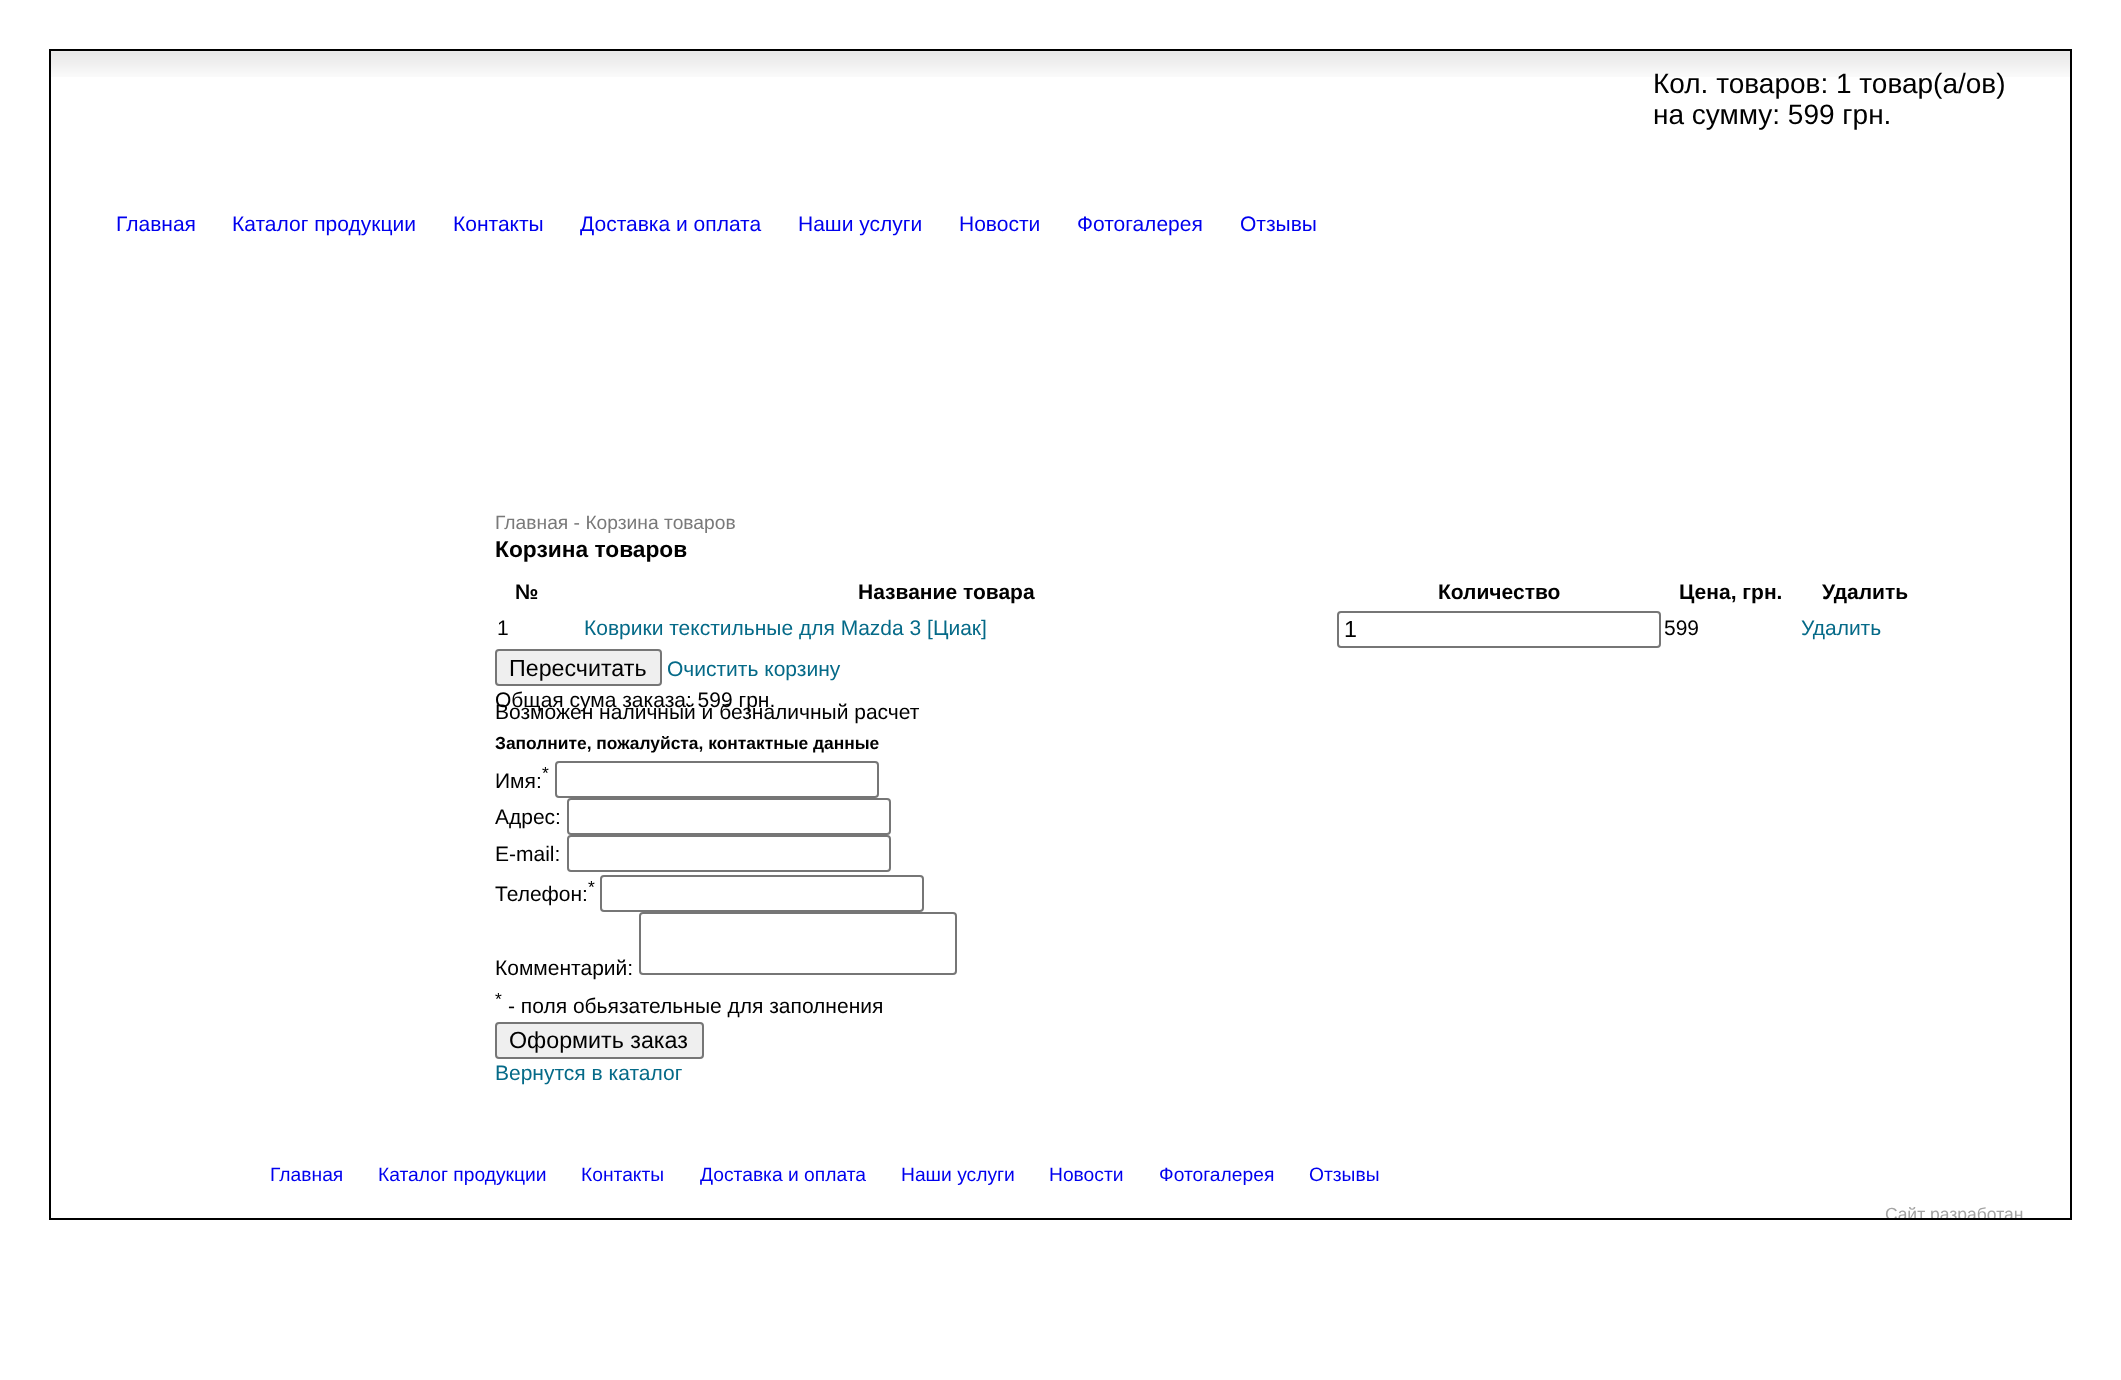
<!DOCTYPE html>
<meta charset="utf-8">
<style>body { margin: 0 } canvas { display: block }</style>
<canvas id="canvas" width="2121" height="1380"></canvas>
<script type="module">
  const canvas = document.getElementById("canvas");
  const g = canvas.getContext("2d");
  g.miterLimit = 4;
  g.fontKerning = "normal";
  function drawText(s, x, y, [font, color]) {
    g.font = font;
    g.fillStyle = color;
    g.fillText(s, x, y);
  }
  function fillBox(x, y, w, h, color) {
    g.fillStyle = color;
    g.fillRect(x, y, w, h);
  }
  async function drawPicture(src, x, y, w, h) {
    const img = new Image();
    img.src = src;
    await img.decode();
    g.drawImage(img, x, y, w, h);
  }

  const s1 = ["28px Liberation Sans", "#000000"];
  const s2 = ["21px Liberation Sans", "#0000EE"];
  const s3 = ["19.25px Liberation Sans", "#797979"];
  const s4 = ["bold 22.75px Liberation Sans", "#000000"];
  const s5 = ["bold 21px Liberation Sans", "#000000"];
  const s6 = ["21px Liberation Sans", "#000000"];
  const s7 = ["21px Liberation Sans", "#056A88"];
  const s8 = ["23.25px Liberation Sans", "#000000"];
  const s9 = ["bold 17.4px Liberation Sans", "#000000"];
  const s10 = ["17.5px Liberation Sans", "#000000"];
  const s11 = ["19.25px Liberation Sans", "#0000EE"];
  const s12 = ["17.5px Liberation Sans", "#A3A3A3"];

  fillBox(0, 0, 2121, 1380, "#FFFFFF");
  await drawPicture("pic1.png", 51, 51, 2019, 26);
  g.strokeStyle = "#000000";
  g.lineWidth = 2;
  g.strokeRect(50, 50, 2021, 1169);
  drawText("Кол. товаров: 1 товар(а/ов)", 1653, 93, s1);
  drawText("на сумму: 599 грн.", 1653, 124, s1);
  drawText("Главная", 116, 231, s2);
  drawText("Каталог продукции", 232, 231, s2);
  drawText("Контакты", 453, 231, s2);
  drawText("Доставка и оплата", 580, 231, s2);
  drawText("Наши услуги", 798, 231, s2);
  drawText("Новости", 959, 231, s2);
  drawText("Фотогалерея", 1077, 231, s2);
  drawText("Отзывы", 1240, 231, s2);
  drawText("Главная - Корзина товаров", 495, 529, s3);
  drawText("Корзина товаров", 495, 557, s4);
  drawText("№", 515, 599, s5);
  drawText("Название товара", 858, 599, s5);
  drawText("Количество", 1438, 599, s5);
  drawText("Цена, грн.", 1679, 599, s5);
  drawText("Удалить", 1822, 599, s5);
  drawText("1", 497, 635, s6);
  drawText("Коврики текстильные для Mazda 3 [Циак]", 584, 635, s7);
  g.beginPath();
  g.roundRect(1338, 612, 322, 35, 3);
  g.strokeStyle = "#767676";
  g.stroke();
  drawText("1", 1344, 637, s8);
  drawText("599", 1664, 635, s6);
  drawText("Удалить", 1801, 635, s7);
  g.fillStyle = "#EFEFEF";
  g.beginPath();
  g.roundRect(496, 650, 165, 35, 3);
  g.fill();
  g.stroke();
  drawText("Пересчитать", 509, 676, s8);
  drawText("Очистить корзину", 667, 676, s7);
  drawText("Общая сума заказа: 599 грн.", 495, 707, s6);
  drawText("Возможен наличный и безналичный расчет", 495, 719, s6);
  drawText("Заполните, пожалуйста, контактные данные", 495, 749, s9);
  drawText("*", 542, 779, s10);
  g.beginPath();
  g.roundRect(556, 762, 322, 35, 3);
  g.stroke();
  drawText("Имя:", 495, 788, s6);
  drawText("Адрес:", 495, 824, s6);
  g.beginPath();
  g.roundRect(568, 799, 322, 35, 3);
  g.stroke();
  drawText("E-mail:", 495, 861, s6);
  g.beginPath();
  g.roundRect(568, 836, 322, 35, 3);
  g.stroke();
  drawText("*", 588, 893, s10);
  g.beginPath();
  g.roundRect(601, 876, 322, 35, 3);
  g.stroke();
  drawText("Телефон:", 495, 901, s6);
  drawText("Комментарий:", 495, 975, s6);
  g.beginPath();
  g.roundRect(640, 913, 316, 61, 3);
  g.stroke();
  drawText("*", 495, 1005, s10);
  drawText("- поля обьязательные для заполнения", 508, 1013, s6);
  g.fillStyle = "#EFEFEF";
  g.beginPath();
  g.roundRect(496, 1023, 207, 35, 3);
  g.fill();
  g.stroke();
  drawText("Оформить заказ", 509, 1048, s8);
  drawText("Вернутся в каталог", 495, 1080, s7);
  drawText("Главная", 270, 1181, s11);
  drawText("Каталог продукции", 378, 1181, s11);
  drawText("Контакты", 581, 1181, s11);
  drawText("Доставка и оплата", 700, 1181, s11);
  drawText("Наши услуги", 901, 1181, s11);
  drawText("Новости", 1049, 1181, s11);
  drawText("Фотогалерея", 1159, 1181, s11);
  drawText("Отзывы", 1309, 1181, s11);
  g.save();
  g.beginPath();
  g.rect(98, 1139, 1925, 79);
  g.clip();
  drawText("Cайт разработан", 1885, 1220, s12);
  g.restore();
</script>
